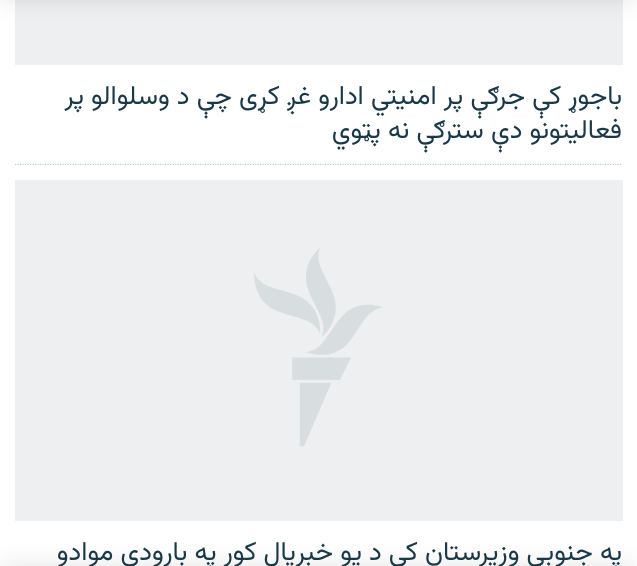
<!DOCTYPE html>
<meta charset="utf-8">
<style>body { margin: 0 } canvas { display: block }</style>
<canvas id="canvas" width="637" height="566"></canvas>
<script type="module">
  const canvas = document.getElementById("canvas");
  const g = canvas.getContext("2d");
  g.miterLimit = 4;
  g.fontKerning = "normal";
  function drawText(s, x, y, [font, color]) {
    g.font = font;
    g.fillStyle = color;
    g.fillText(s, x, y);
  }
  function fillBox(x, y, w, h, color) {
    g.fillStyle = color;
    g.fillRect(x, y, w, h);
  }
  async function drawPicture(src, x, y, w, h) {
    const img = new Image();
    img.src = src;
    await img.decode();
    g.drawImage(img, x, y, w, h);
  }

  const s1 = ["26.6px Vazirmatn", "#1A3948"];

  fillBox(0, 0, 637, 566, "#FFFFFF");
  fillBox(15, 0, 608, 65, "#EDEFF0");
  g.fillStyle = "rgba(0, 0, 0, 0.1)";
  g.filter = "blur(12.5px)";
  g.beginPath();
  g.rect(0, -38, 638, 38);
  g.fill();
  g.filter = "none";
  g.filter = "blur(12.5px)";
  g.beginPath();
  g.rect(0, 566, 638, 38);
  g.fill();
  g.filter = "none";
  g.direction = "rtl";
  drawText("باجوړ کې جرګې پر امنیتي ادارو غږ کړی چې د وسلوالو پر", 622, 104, s1);
  drawText("فعالیتونو دې سترګې نه پټوي", 622, 138, s1);
  g.beginPath();
  g.moveTo(15, 164.5);
  g.lineTo(622.5, 164.5);
  g.strokeStyle = "#B4C5CD";
  g.lineWidth = 1.2;
  g.setLineDash([1.25, 1.25]);
  g.stroke();
  fillBox(15, 180, 608, 341, "#EDEFF0");
  await drawPicture("pic1.png", 254, 248, 129, 199);
  drawText("په جنوبي وزیرستان کې د یو خبریال کور په بارودي موادو", 622, 560, s1);
</script>
